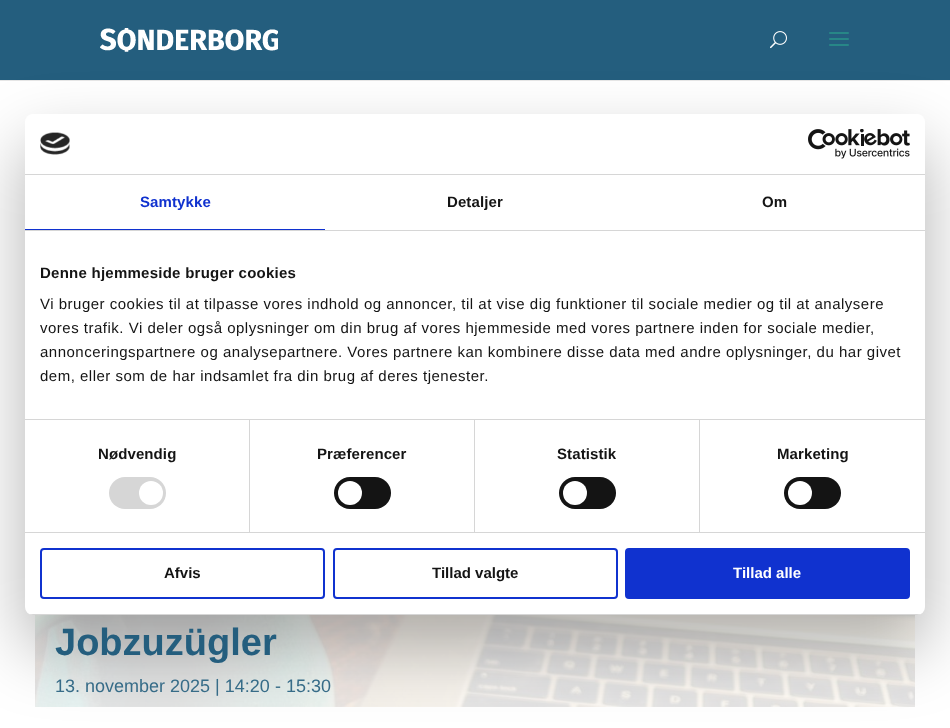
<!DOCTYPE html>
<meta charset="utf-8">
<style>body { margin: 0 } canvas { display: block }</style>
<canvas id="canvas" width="950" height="728"></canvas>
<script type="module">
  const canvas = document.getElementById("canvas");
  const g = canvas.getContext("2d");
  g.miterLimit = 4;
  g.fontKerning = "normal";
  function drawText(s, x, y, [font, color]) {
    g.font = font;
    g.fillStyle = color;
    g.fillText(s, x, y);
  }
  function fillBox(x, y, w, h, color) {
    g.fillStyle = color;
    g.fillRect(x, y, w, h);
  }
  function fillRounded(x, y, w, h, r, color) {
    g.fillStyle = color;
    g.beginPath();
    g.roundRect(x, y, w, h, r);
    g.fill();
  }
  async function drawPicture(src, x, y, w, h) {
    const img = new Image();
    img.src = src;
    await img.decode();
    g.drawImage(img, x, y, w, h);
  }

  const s1 = ["bold 15px Liberation Sans", "#1032CF"];
  const s2 = ["bold 15px Liberation Sans", "#141414"];
  const s3 = ["15px Liberation Sans", "#141414"];
  const s4 = ["bold 15px Liberation Sans", "#FFFFFF"];
  const s5 = ["bold 38px Liberation Sans", "#245E7E"];
  const s6 = ["18px Liberation Sans", "#376C88"];

  fillBox(0, 0, 950, 728, "#FFFFFF");
  fillBox(0, 80, 950, 1, "#E6E6E6");
  fillBox(0, 0, 950, 80, "#245E7E");
  await drawPicture("pic3.png", 100, 28, 178, 24);
  await drawPicture("pic4.png", 770, 31, 17, 18);
  await drawPicture("pic5.png", 829, 32, 20, 14);
  await drawPicture("pic6.png", 35, 615, 880, 92);
  fillBox(35, 615, 880, 92, "rgba(255, 255, 255, 0.88)");
  g.fillStyle = "rgba(0, 0, 0, 0.3)";
  g.filter = "blur(34px)";
  g.beginPath();
  g.roundRect(25, 146, 900, 501, 8);
  g.fill();
  g.filter = "none";
  fillRounded(25, 114, 900, 501, 8, "#FFFFFF");
  fillBox(25, 174, 900, 1, "#D6D6D6");
  await drawPicture("pic1.png", 40, 132, 30, 23);
  await drawPicture("pic2.png", 808, 129, 102, 30);
  fillBox(25, 230, 900, 1, "#D6D6D6");
  fillBox(25, 229, 300, 1, "#1032CF");
  g.letterSpacing = "0.1px";
  drawText("Samtykke", 140, 207, s1);
  drawText("Detaljer", 447, 207, s2);
  drawText("Om", 762, 207, s2);
  fillBox(25, 419, 900, 1, "#D6D6D6");
  g.letterSpacing = "0.25px";
  drawText("Denne hjemmeside bruger cookies", 40, 278, s2);
  g.letterSpacing = "0.5px";
  drawText("Vi bruger cookies til at tilpasse vores indhold og annoncer, til at vise dig funktioner til sociale medier og til at analysere", 40, 309, s3);
  drawText("vores trafik. Vi deler også oplysninger om din brug af vores hjemmeside med vores partnere inden for sociale medier,", 40, 333, s3);
  drawText("annonceringspartnere og analysepartnere. Vores partnere kan kombinere disse data med andre oplysninger, du har givet", 40, 357, s3);
  drawText("dem, eller som de har indsamlet fra din brug af deres tjenester.", 40, 381, s3);
  fillBox(25, 532, 900, 1, "#D6D6D6");
  fillBox(249, 420, 1, 112, "#D6D6D6");
  g.letterSpacing = "0.1px";
  drawText("Nødvendig", 98, 459, s2);
  fillRounded(109, 477, 57, 32, 16, "#D6D6D6");
  g.fillStyle = "#FFFFFF";
  g.beginPath();
  g.arc(151, 493, 12, 0, Math.PI * 2);
  g.fill();
  fillBox(474, 420, 1, 112, "#D6D6D6");
  drawText("Præferencer", 317, 459, s2);
  fillRounded(334, 477, 57, 32, 16, "#141414");
  g.fillStyle = "#FFFFFF";
  g.beginPath();
  g.arc(350, 493, 12, 0, Math.PI * 2);
  g.fill();
  fillBox(699, 420, 1, 112, "#D6D6D6");
  drawText("Statistik", 557, 459, s2);
  fillRounded(559, 477, 57, 32, 16, "#141414");
  g.fillStyle = "#FFFFFF";
  g.beginPath();
  g.arc(575, 493, 12, 0, Math.PI * 2);
  g.fill();
  drawText("Marketing", 777, 459, s2);
  fillRounded(784, 477, 57, 32, 16, "#141414");
  g.fillStyle = "#FFFFFF";
  g.beginPath();
  g.arc(800, 493, 12, 0, Math.PI * 2);
  g.fill();
  g.save();
  g.beginPath();
  g.roundRect(25, 114, 900, 501, 8);
  g.clip();
  fillBox(25, 614, 900, 1, "#D6D6D6");
  g.restore();
  g.beginPath();
  g.roundRect(41, 549, 283, 49, 3);
  g.strokeStyle = "#1032CF";
  g.lineWidth = 2;
  g.stroke();
  g.letterSpacing = "0px";
  drawText("Afvis", 164, 578, s2);
  g.beginPath();
  g.roundRect(334, 549, 283, 49, 3);
  g.stroke();
  drawText("Tillad valgte", 432, 578, s2);
  g.fillStyle = "#1032CF";
  g.beginPath();
  g.roundRect(626, 549, 283, 49, 3);
  g.fill();
  g.stroke();
  drawText("Tillad alle", 733, 578, s4);
  drawText("Jobzuzügler", 55, 655, s5);
  drawText("13. november 2025 | 14:20", 55, 692, s6);
  drawText("-", 275, 692, s6);
  drawText("15:30", 286, 692, s6);
</script>
